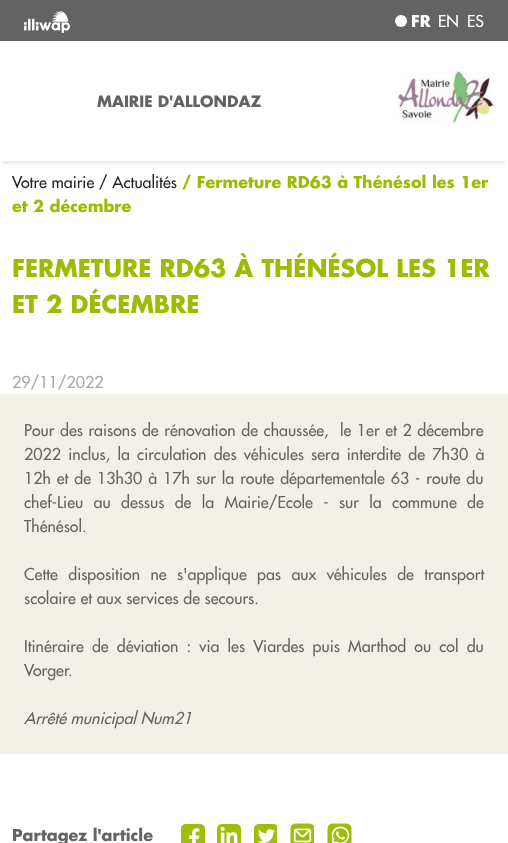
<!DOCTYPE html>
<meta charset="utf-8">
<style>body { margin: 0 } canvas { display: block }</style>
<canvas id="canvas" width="508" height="843"></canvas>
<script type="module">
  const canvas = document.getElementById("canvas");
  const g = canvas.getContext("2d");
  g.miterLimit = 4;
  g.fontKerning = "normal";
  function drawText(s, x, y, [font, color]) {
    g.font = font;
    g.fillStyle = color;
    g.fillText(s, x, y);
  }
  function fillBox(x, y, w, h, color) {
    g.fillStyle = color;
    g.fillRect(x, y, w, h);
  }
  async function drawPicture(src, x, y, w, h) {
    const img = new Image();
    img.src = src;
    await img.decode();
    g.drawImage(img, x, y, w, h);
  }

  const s1 = ["bold 16px Futura", "#FFFFFF"];
  const s2 = ["16px Futura", "#FFFFFF"];
  const s3 = ["bold 15.25px Futura", "#646363"];
  const s4 = ["16px Futura", "#212529"];
  const s5 = ["bold 16px Futura", "#9FBA00"];
  const s6 = ["bold 23.85px Futura", "#9FBA00"];
  const s7 = ["16px Futura", "#A8A8A8"];
  const s8 = ["16px Futura", "#646363"];
  const s9 = ["italic 16px Futura", "#646363"];
  const s10 = ["bold 16px Futura", "#646363"];

  fillBox(0, 0, 508, 843, "#FFFFFF");
  g.save();
  g.beginPath();
  g.rect(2, 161, 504, 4);
  g.clip();
  g.fillStyle = "rgba(0, 0, 0, 0.08)";
  g.filter = "blur(1.5px)";
  g.beginPath();
  g.rect(3, 9, 502, 155);
  g.fill();
  g.filter = "none";
  g.restore();
  fillBox(0, 0, 508, 41, "#646363");
  await drawPicture("pic1.png", 24, 11, 46, 22);
  g.fillStyle = "#FFFFFF";
  g.beginPath();
  g.arc(401, 21, 6, 0, Math.PI * 2);
  g.fill();
  drawText("FR", 411, 27, s1);
  drawText("EN", 438, 27, s2);
  drawText("ES", 467, 27, s2);
  drawText("MAIRIE D'ALLONDAZ", 97, 107, s3);
  await drawPicture("pic2.png", 398, 71, 96, 54);
  drawText("Votre mairie / Actualités", 12, 188, s4);
  drawText("/ Fermeture RD63 à Thénésol les 1er", 182, 188, s5);
  drawText("et 2 décembre", 12, 212, s5);
  drawText("FERMETURE RD63 À THÉNÉSOL LES 1ER", 12, 277, s6);
  drawText("ET 2 DÉCEMBRE", 12, 313, s6);
  drawText("29/11/2022", 12, 388, s7);
  fillBox(0, 394, 508, 360, "#F3F0E8");
  g.wordSpacing = "1px";
  drawText("Pour des raisons de rénovation de chaussée,  le 1er et 2 décembre", 24, 436, s8);
  g.wordSpacing = "2.6px";
  drawText("2022 inclus, la circulation des véhicules sera interdite de 7h30 à", 24, 460, s8);
  g.wordSpacing = "1.3px";
  drawText("12h et de 13h30 à 17h sur la route départementale 63 - route du", 24, 484, s8);
  g.wordSpacing = "5.75px";
  drawText("chef-Lieu au dessus de la Mairie/Ecole - sur la commune de", 24, 508, s8);
  g.wordSpacing = "0px";
  drawText("Thénésol.", 24, 532, s8);
  g.wordSpacing = "5.75px";
  drawText("Cette disposition ne s'applique pas aux véhicules de transport", 24, 580, s8);
  g.wordSpacing = "0px";
  drawText("scolaire et aux services de secours.", 24, 604, s8);
  g.wordSpacing = "3.5px";
  drawText("Itinéraire de déviation : via les Viardes puis Marthod ou col du", 24, 652, s8);
  g.wordSpacing = "0px";
  drawText("Vorger.", 24, 676, s8);
  drawText("Arrêté municipal Num21", 24, 724, s9);
  drawText("Partagez l'article", 12, 841, s10);
  await drawPicture("pic3.png", 181, 824, 24, 19);
  await drawPicture("pic4.png", 217, 824, 24, 19);
  await drawPicture("pic5.png", 254, 824, 23, 19);
  await drawPicture("pic6.png", 290, 823, 24, 20);
  await drawPicture("pic7.png", 327, 823, 25, 20);
</script>
